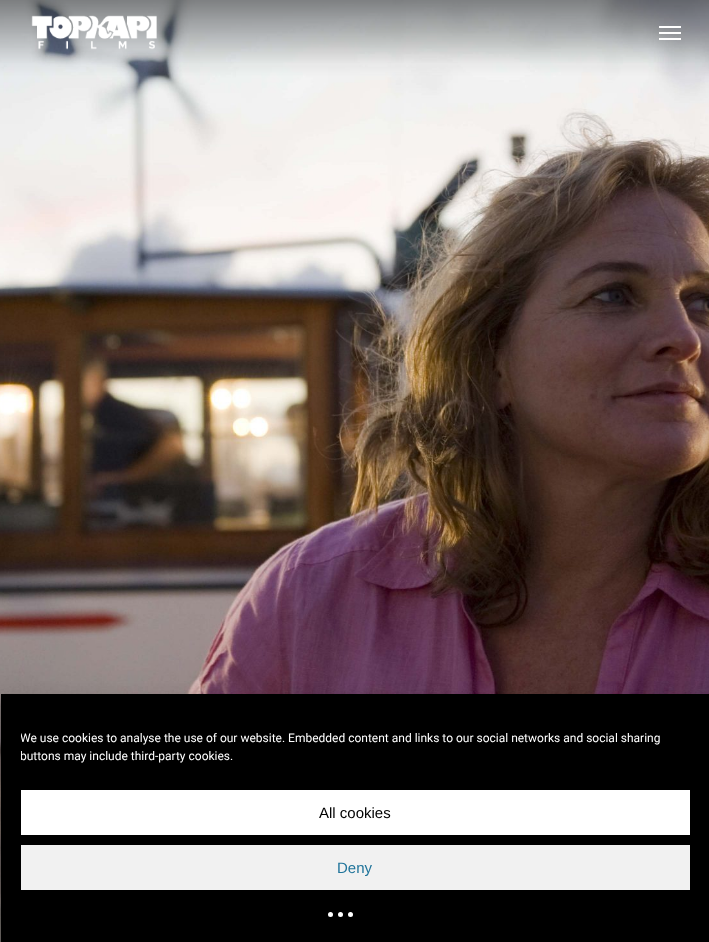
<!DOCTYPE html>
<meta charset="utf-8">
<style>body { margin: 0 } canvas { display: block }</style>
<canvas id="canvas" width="709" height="942"></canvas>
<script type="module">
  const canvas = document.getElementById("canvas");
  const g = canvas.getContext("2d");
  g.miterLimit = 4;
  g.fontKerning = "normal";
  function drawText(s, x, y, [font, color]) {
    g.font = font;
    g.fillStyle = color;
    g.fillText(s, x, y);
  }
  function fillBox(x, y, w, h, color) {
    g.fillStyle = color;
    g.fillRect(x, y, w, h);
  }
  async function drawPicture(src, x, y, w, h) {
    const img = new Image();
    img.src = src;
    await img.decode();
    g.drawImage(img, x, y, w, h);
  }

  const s1 = ["12px Roboto", "#FFFFFF"];
  const s2 = ["15px Liberation Sans", "#000000"];
  const s3 = ["15px Liberation Sans", "#21759B"];

  fillBox(0, 0, 709, 942, "#FFFFFF");
  await drawPicture("pic1.png", 0, 0, 709, 942);
  await drawPicture("pic2.png", 31, 15, 126, 35);
  fillBox(659, 26, 22, 2, "#FFFFFF");
  fillBox(659, 38, 22, 2, "#FFFFFF");
  fillBox(659, 32, 22, 2, "#FFFFFF");
  g.fillStyle = "rgba(0, 0, 0, 0.23)";
  g.filter = "blur(3px)";
  g.beginPath();
  g.rect(1, 700, 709, 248);
  g.fill();
  g.filter = "none";
  g.fillStyle = "rgba(0, 0, 0, 0.19)";
  g.filter = "blur(10px)";
  g.beginPath();
  g.rect(1, 704, 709, 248);
  g.fill();
  g.filter = "none";
  fillBox(1, 694, 708, 248, "#000000");
  g.save();
  g.beginPath();
  g.rect(21, 729, 669, 41);
  g.clip();
  drawText("We use cookies to analyse the use of our website. Embedded content and links to our social networks and social sharing", 20, 742, s1);
  drawText("buttons may include third-party cookies.", 20, 760, s1);
  g.restore();
  fillBox(21, 790, 669, 45, "#FFFFFF");
  drawText("All cookies", 319, 818, s2);
  fillBox(21, 845, 669, 45, "#F1F1F1");
  drawText("Deny", 337, 873, s3);
  g.fillStyle = "#FFFFFF";
  g.beginPath();
  g.arc(330.5, 914.5, 2.5, 0, Math.PI * 2);
  g.fill();
  g.beginPath();
  g.arc(340.5, 914.5, 2.5, 0, Math.PI * 2);
  g.fill();
  g.beginPath();
  g.arc(350.5, 914.5, 2.5, 0, Math.PI * 2);
  g.fill();
</script>
